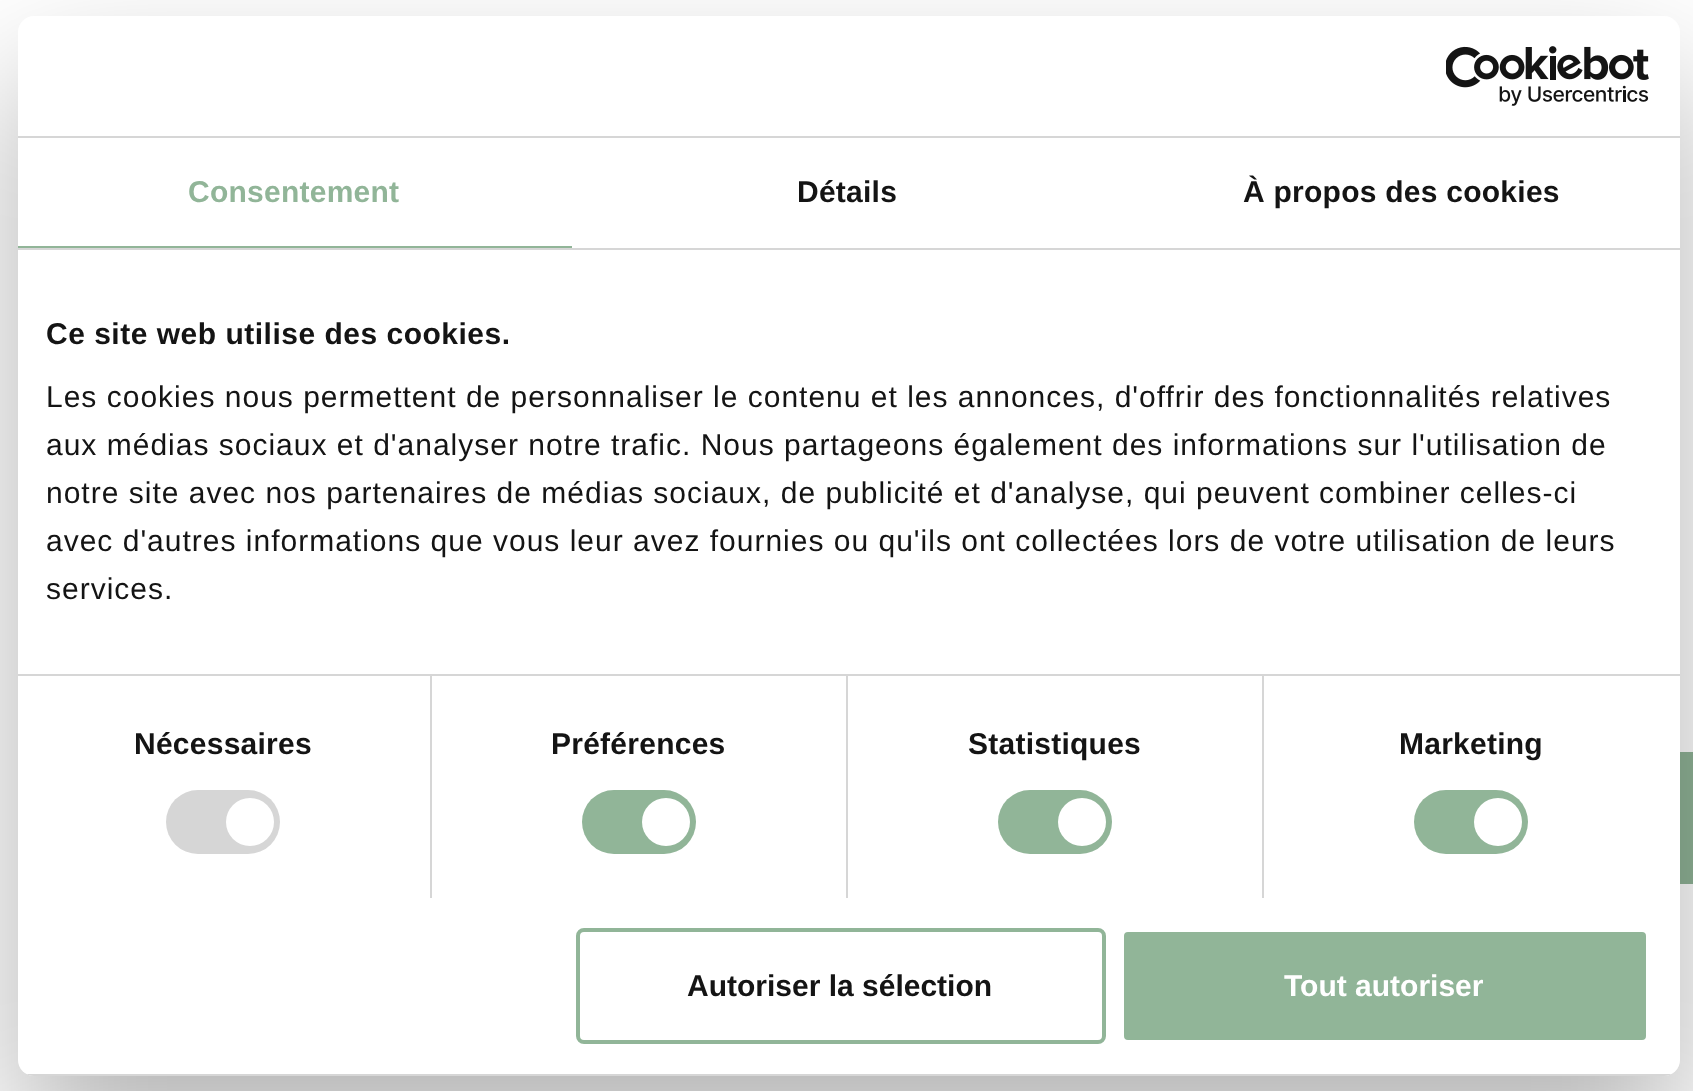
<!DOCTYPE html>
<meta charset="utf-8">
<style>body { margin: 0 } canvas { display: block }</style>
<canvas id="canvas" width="1693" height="1091"></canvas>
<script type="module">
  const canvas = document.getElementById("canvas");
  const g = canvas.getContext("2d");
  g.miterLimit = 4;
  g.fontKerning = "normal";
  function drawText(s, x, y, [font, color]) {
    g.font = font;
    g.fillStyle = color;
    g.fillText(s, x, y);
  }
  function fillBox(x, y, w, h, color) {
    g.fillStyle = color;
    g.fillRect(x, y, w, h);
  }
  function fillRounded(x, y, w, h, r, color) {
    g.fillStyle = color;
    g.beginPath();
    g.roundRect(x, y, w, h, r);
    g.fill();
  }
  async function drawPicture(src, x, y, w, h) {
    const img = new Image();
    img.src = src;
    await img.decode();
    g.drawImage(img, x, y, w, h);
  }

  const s1 = ["bold 30px Liberation Sans", "#91B598"];
  const s2 = ["bold 30px Liberation Sans", "#141414"];
  const s3 = ["30px Liberation Sans", "#141414"];
  const s4 = ["bold 30px Liberation Sans", "#FFFFFF"];

  fillBox(0, 0, 1693, 1091, "#FFFFFF");
  fillBox(1680, 752, 13, 132, "#91B598");
  g.fillStyle = "rgba(0, 0, 0, 0.3)";
  g.filter = "blur(68px)";
  g.beginPath();
  g.roundRect(18, 80, 1662, 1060, 16);
  g.fill();
  g.filter = "none";
  fillRounded(18, 16, 1662, 1060, 16, "#FFFFFF");
  fillBox(18, 136, 1662, 2, "#D6D6D6");
  await drawPicture("pic1.png", 1446, 46, 203, 60);
  fillBox(18, 248, 1662, 2, "#D6D6D6");
  fillBox(18, 246, 554, 2, "#91B598");
  g.letterSpacing = "0.25px";
  drawText("Consentement", 188, 202, s1);
  drawText("Détails", 797, 202, s2);
  drawText("À propos des cookies", 1243, 202, s2);
  fillBox(18, 674, 1662, 2, "#D6D6D6");
  g.letterSpacing = "0.5px";
  drawText("Ce site web utilise des cookies.", 46, 344, s2);
  g.letterSpacing = "1px";
  drawText("Les cookies nous permettent de personnaliser le contenu et les annonces, d'offrir des fonctionnalités relatives", 46, 407, s3);
  drawText("aux médias sociaux et d'analyser notre trafic. Nous partageons également des informations sur l'utilisation de", 46, 455, s3);
  drawText("notre site avec nos partenaires de médias sociaux, de publicité et d'analyse, qui peuvent combiner celles-ci", 46, 503, s3);
  drawText("avec d'autres informations que vous leur avez fournies ou qu'ils ont collectées lors de votre utilisation de leurs", 46, 551, s3);
  drawText("services.", 46, 599, s3);
  fillBox(430, 676, 2, 222, "#D6D6D6");
  g.letterSpacing = "0.25px";
  drawText("Nécessaires", 134, 754, s2);
  fillRounded(166, 790, 114, 64, 32, "#D6D6D6");
  g.fillStyle = "#FFFFFF";
  g.beginPath();
  g.arc(250, 822, 24, 0, Math.PI * 2);
  g.fill();
  fillBox(846, 676, 2, 222, "#D6D6D6");
  drawText("Préférences", 551, 754, s2);
  fillRounded(582, 790, 114, 64, 32, "#91B598");
  g.fillStyle = "#FFFFFF";
  g.beginPath();
  g.arc(666, 822, 24, 0, Math.PI * 2);
  g.fill();
  fillBox(1262, 676, 2, 222, "#D6D6D6");
  drawText("Statistiques", 968, 754, s2);
  fillRounded(998, 790, 114, 64, 32, "#91B598");
  g.fillStyle = "#FFFFFF";
  g.beginPath();
  g.arc(1082, 822, 24, 0, Math.PI * 2);
  g.fill();
  drawText("Marketing", 1399, 754, s2);
  fillRounded(1414, 790, 114, 64, 32, "#91B598");
  g.fillStyle = "#FFFFFF";
  g.beginPath();
  g.arc(1498, 822, 24, 0, Math.PI * 2);
  g.fill();
  g.save();
  g.beginPath();
  g.roundRect(18, 16, 1662, 1060, 16);
  g.clip();
  fillBox(18, 1074, 1662, 2, "#D6D6D6");
  g.restore();
  g.beginPath();
  g.roundRect(578, 930, 526, 112, 6);
  g.strokeStyle = "#91B598";
  g.lineWidth = 4;
  g.stroke();
  g.letterSpacing = "0px";
  drawText("Autoriser la sélection", 687, 996, s2);
  g.fillStyle = "#91B598";
  g.beginPath();
  g.roundRect(1122, 930, 526, 112, 6);
  g.fill();
  g.strokeStyle = "#FFFFFF";
  g.stroke();
  drawText("Tout autoriser", 1284, 996, s4);
</script>
